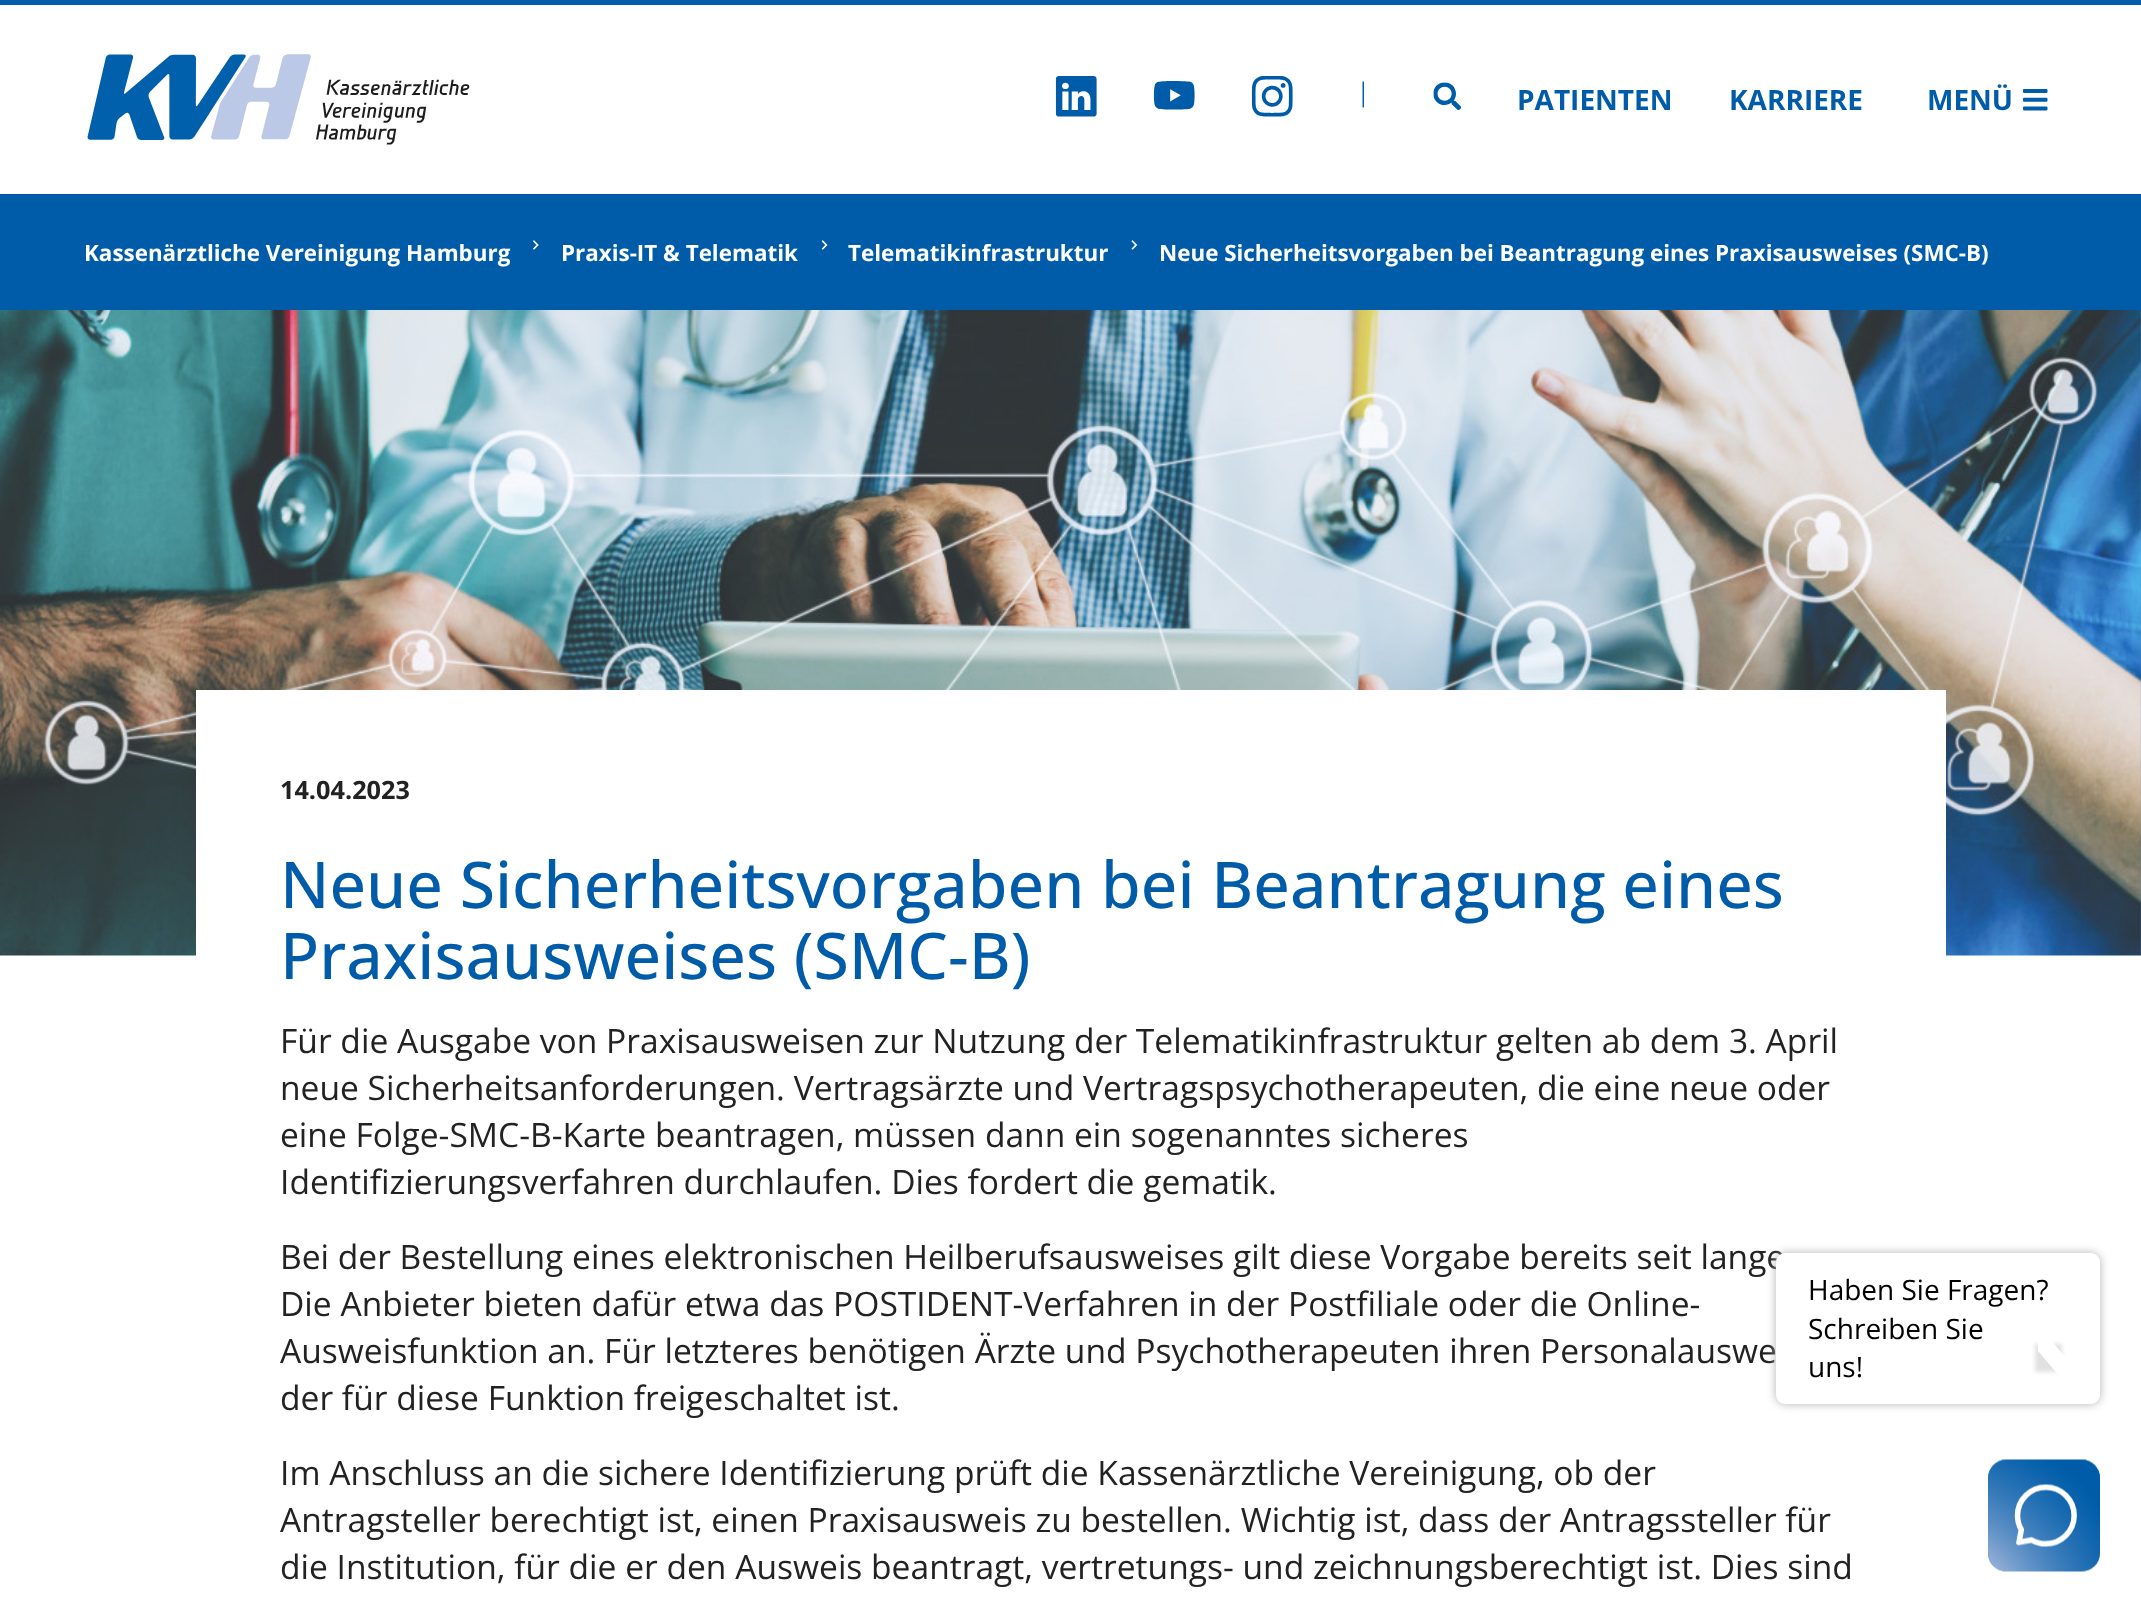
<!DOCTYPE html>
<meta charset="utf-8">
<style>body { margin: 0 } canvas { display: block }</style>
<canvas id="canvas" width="2141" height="1612"></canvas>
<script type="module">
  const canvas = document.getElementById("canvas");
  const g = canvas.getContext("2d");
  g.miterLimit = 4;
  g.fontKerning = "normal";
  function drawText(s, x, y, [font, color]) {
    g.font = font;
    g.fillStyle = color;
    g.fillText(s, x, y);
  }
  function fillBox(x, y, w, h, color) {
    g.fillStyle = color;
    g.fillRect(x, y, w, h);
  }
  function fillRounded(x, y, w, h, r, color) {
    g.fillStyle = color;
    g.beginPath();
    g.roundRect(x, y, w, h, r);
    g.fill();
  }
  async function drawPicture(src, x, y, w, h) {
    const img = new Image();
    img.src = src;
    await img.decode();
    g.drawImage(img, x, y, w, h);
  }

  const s1 = ["bold 28px Open Sans", "#005CA9"];
  const s2 = ["bold 22.4px Open Sans", "#FFFFFF"];
  const s3 = ["bold 25.25px Open Sans", "#222222"];
  const s4 = ["500 64.4px Open Sans", "#005CA9"];
  const s5 = ["33.6px Open Sans", "#222222"];
  const s6 = ["28px Open Sans", "#000000"];

  fillBox(0, 0, 2141, 1612, "#FFFFFF");
  fillBox(0, 0, 2141, 5, "#005CA9");
  await drawPicture("pic1.png", 87, 54, 383, 91);
  await drawPicture("pic2.png", 1055, 76, 42, 41);
  await drawPicture("pic3.png", 1153, 81, 42, 29);
  await drawPicture("pic4.png", 1251, 76, 42, 41);
  await drawPicture("pic5.png", 1362, 81, 2, 27);
  await drawPicture("pic6.png", 1433, 82, 28, 28);
  drawText("PATIENTEN", 1517, 110, s1);
  drawText("KARRIERE", 1729, 110, s1);
  drawText("MENÜ", 1927, 110, s1);
  await drawPicture("pic7.png", 2023, 89, 25, 22);
  fillBox(0, 194, 2141, 116, "#005CA9");
  drawText("Kassenärztliche Vereinigung Hamburg", 84, 261, s2);
  await drawPicture("pic8.png", 533, 240, 6, 10);
  drawText("Praxis-IT & Telematik", 561, 261, s2);
  await drawPicture("pic9.png", 821, 240, 7, 10);
  drawText("Telematikinfrastruktur", 848, 261, s2);
  await drawPicture("pic10.png", 1131, 240, 7, 10);
  drawText("Neue Sicherheitsvorgaben bei Beantragung eines Praxisausweises (SMC-B)", 1159, 261, s2);
  await drawPicture("pic11.png", 0, 310, 2141, 646);
  fillBox(196, 690, 1750, 266, "#FFFFFF");
  drawText("14.04.2023", 280, 799, s3);
  drawText("Neue Sicherheitsvorgaben bei Beantragung eines", 280, 908, s4);
  drawText("Praxisausweises (SMC-B)", 280, 979, s4);
  drawText("Für die Ausgabe von Praxisausweisen zur Nutzung der Telematikinfrastruktur gelten ab dem 3. April", 280, 1053, s5);
  drawText("neue Sicherheitsanforderungen. Vertragsärzte und Vertragspsychotherapeuten, die eine neue oder", 280, 1100, s5);
  drawText("eine Folge-SMC-B-Karte beantragen, müssen dann ein sogenanntes sicheres", 280, 1147, s5);
  drawText("Identifizierungsverfahren durchlaufen. Dies fordert die gematik.", 280, 1194, s5);
  drawText("Bei der Bestellung eines elektronischen Heilberufsausweises gilt diese Vorgabe bereits seit lange", 280, 1269, s5);
  drawText("Die Anbieter bieten dafür etwa das POSTIDENT-Verfahren in der Postfiliale oder die Online-", 280, 1316, s5);
  drawText("Ausweisfunktion an. Für letzteres benötigen Ärzte und Psychotherapeuten ihren Personalauswe", 280, 1363, s5);
  drawText("der für diese Funktion freigeschaltet ist.", 280, 1410, s5);
  drawText("Im Anschluss an die sichere Identifizierung prüft die Kassenärztliche Vereinigung, ob der", 280, 1485, s5);
  drawText("Antragsteller berechtigt ist, einen Praxisausweis zu bestellen. Wichtig ist, dass der Antragssteller für", 280, 1532, s5);
  drawText("die Institution, für die er den Ausweis beantragt, vertretungs- und zeichnungsberechtigt ist. Dies sind", 280, 1579, s5);
  g.fillStyle = "#B2B2B2";
  g.filter = "blur(5px)";
  g.beginPath();
  g.roundRect(1776, 1253, 324, 151, 9);
  g.fill();
  g.filter = "none";
  fillRounded(1776, 1253, 324, 151, 9, "#FFFFFF");
  drawText("Haben Sie Fragen?", 1808, 1300, s6);
  drawText("Schreiben Sie", 1808, 1339, s6);
  g.fillStyle = "rgba(179, 179, 179, 0.4)";
  g.filter = "blur(2px)";
  g.beginPath();
  g.rect(2035, 1344, 27, 28);
  g.fill();
  g.filter = "none";
  g.fillStyle = "#FFFFFF";
  g.beginPath();
  g.moveTo(2038, 1351);
  g.lineTo(2038, 1325);
  g.lineTo(2066, 1358);
  g.lineTo(2066, 1384);
  g.closePath();
  g.fill();
  drawText("uns!", 1808, 1377, s6);
  await drawPicture("pic12.png", 1988, 1459, 112, 113);
</script>
